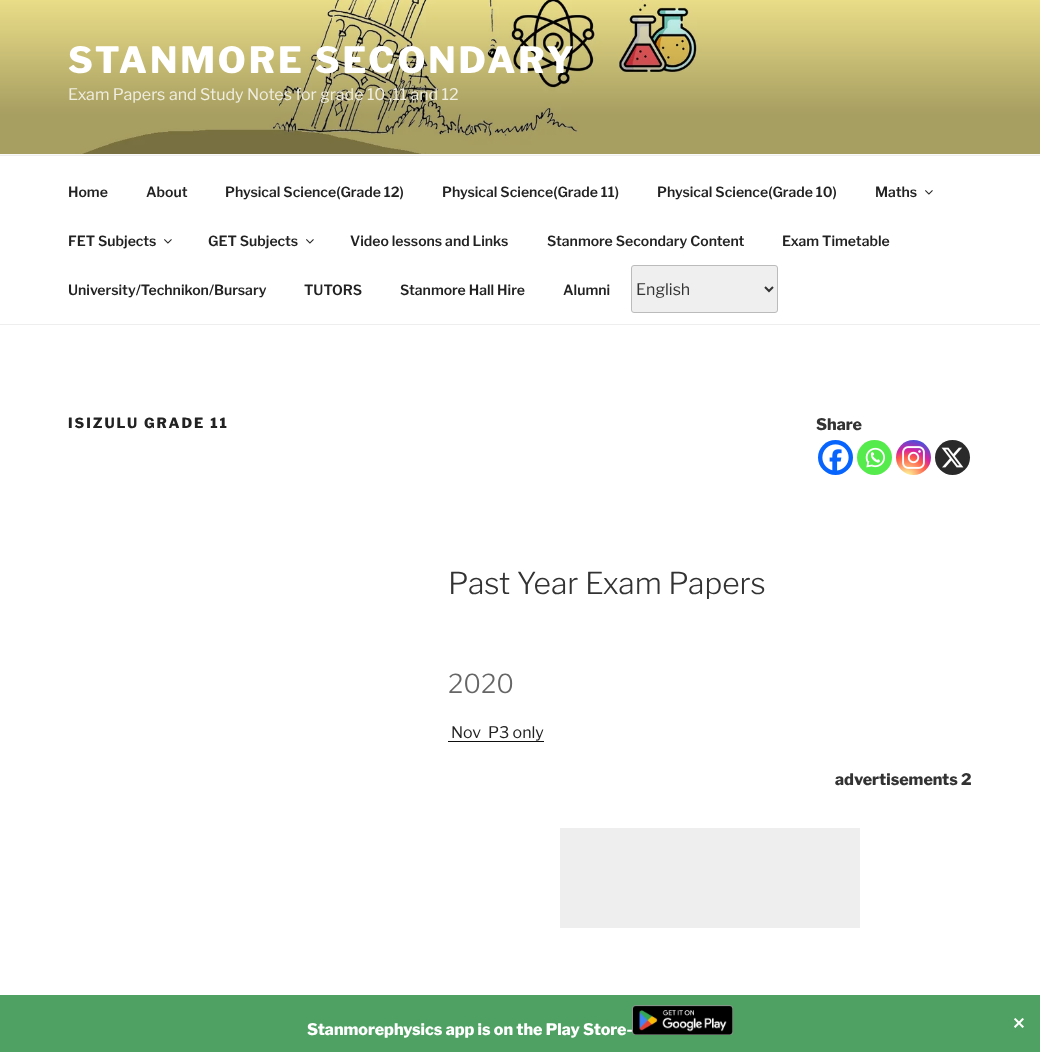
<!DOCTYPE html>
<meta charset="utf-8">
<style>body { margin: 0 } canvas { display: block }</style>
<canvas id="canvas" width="1040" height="1052"></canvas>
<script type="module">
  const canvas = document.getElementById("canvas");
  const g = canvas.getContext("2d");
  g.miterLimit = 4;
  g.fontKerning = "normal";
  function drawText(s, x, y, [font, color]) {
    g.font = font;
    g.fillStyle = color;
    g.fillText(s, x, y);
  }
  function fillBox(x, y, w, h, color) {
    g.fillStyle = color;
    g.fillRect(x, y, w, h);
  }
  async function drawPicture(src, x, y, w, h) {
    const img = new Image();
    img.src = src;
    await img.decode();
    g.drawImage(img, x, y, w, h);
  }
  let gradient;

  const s1 = ["100 36px Libre Franklin", "#FFFFFF"];
  const s2 = ["100 16px 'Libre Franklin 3'", "#F0EEE1"];
  const s3 = ["100 14px 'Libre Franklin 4'", "#222222"];
  const s4 = ["100 16px 'Libre Franklin 3'", "#333333"];
  const s5 = ["100 14px Libre Franklin", "#222222"];
  const s6 = ["100 16px Libre Franklin", "#333333"];
  const s7 = ["100 30px 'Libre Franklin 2'", "#333333"];
  const s8 = ["100 26px 'Libre Franklin 2'", "#666666"];
  const s9 = ["100 16px 'Libre Franklin 3'", "#222222"];
  const s10 = ["100 16px Libre Franklin", "#FFFFFF"];
  const s11 = ["bold 16px DejaVu Sans", "#FFFFFF"];

  fillBox(0, 0, 1040, 1052, "#FFFFFF");
  fillBox(0, 154, 1040, 1, "#FAFAFA");
  await drawPicture("pic1.png", 0, 0, 1040, 154);
  g.letterSpacing = "2.9px";
  drawText("STANMORE SECONDARY", 68, 73, s1);
  g.letterSpacing = "0px";
  drawText("Exam Papers", 68, 100, s2);
  drawText("and Study Notes for grade 10 ,11 and 12", 169, 100, s2);
  fillBox(0, 155, 1040, 1, "#EEEEEE");
  fillBox(0, 324, 1040, 1, "#EEEEEE");
  drawText("Home", 68, 197, s3);
  drawText("About", 146, 197, s3);
  drawText("Physical Science(Grade 12)", 225, 197, s3);
  drawText("Physical Science(Grade 11)", 442, 197, s3);
  drawText("Physical Science(Grade 10)", 657, 197, s3);
  drawText("Maths", 875, 197, s3);
  await drawPicture("pic2.png", 925, 190, 8, 5);
  drawText("FET Subjects", 68, 246, s3);
  await drawPicture("pic2.png", 164, 239, 8, 5);
  drawText("GET Subjects", 208, 246, s3);
  await drawPicture("pic2.png", 306, 239, 8, 5);
  drawText("Video lessons and Links", 350, 246, s3);
  drawText("Stanmore Secondary Content", 547, 246, s3);
  drawText("Exam Timetable", 782, 246, s3);
  drawText("University/Technikon/Bursary", 68, 295, s3);
  drawText("TUTORS", 304, 295, s3);
  drawText("Stanmore Hall Hire", 400, 295, s3);
  drawText("Alumni", 563, 295, s3);
  g.fillStyle = "#EFEFEF";
  g.beginPath();
  g.roundRect(631.5, 265.5, 146, 47, 2.5);
  g.fill();
  g.strokeStyle = "#BBBBBB";
  g.stroke();
  g.beginPath();
  g.moveTo(765, 287);
  g.lineTo(769, 291);
  g.lineTo(773, 287);
  g.strokeStyle = "#333333";
  g.lineWidth = 2;
  g.stroke();
  drawText("English", 636, 295, s4);
  g.letterSpacing = "2px";
  drawText("ISIZULU GRADE 11", 68, 428, s5);
  g.letterSpacing = "0px";
  drawText("Share", 816, 430, s6);
  g.fillStyle = "#0765FE";
  g.beginPath();
  g.arc(835.5, 457.5, 17.5, 0, Math.PI * 2);
  g.fill();
  await drawPicture("pic3.png", 822, 444, 27, 27);
  g.fillStyle = "#55EB4C";
  g.beginPath();
  g.arc(874.5, 457.5, 17.5, 0, Math.PI * 2);
  g.fill();
  await drawPicture("pic4.png", 865, 447, 20, 21);
  gradient = g.createRadialGradient(907, 477, 0, 907, 477, 45);
  gradient.addColorStop(0, "#FDF497");
  gradient.addColorStop(0.05, "#FDF497");
  gradient.addColorStop(0.45, "#FD5949");
  gradient.addColorStop(0.6, "#D6249F");
  gradient.addColorStop(0.9, "#285AEB");
  g.fillStyle = gradient;
  g.beginPath();
  g.arc(913.5, 457.5, 17.5, 0, Math.PI * 2);
  g.fill();
  await drawPicture("pic5.png", 902, 446, 23, 23);
  g.fillStyle = "#2A2A2A";
  g.beginPath();
  g.arc(952.5, 457.5, 17.5, 0, Math.PI * 2);
  g.fill();
  await drawPicture("pic6.png", 941, 447, 23, 21);
  drawText("Past Year Exam Papers", 448, 594, s7);
  drawText("2020", 448, 693, s8);
  drawText("Nov  P3 only", 451, 738, s9);
  fillBox(448, 741, 96, 1, "#0F0F0F");
  drawText("advertisements 2", 835, 785, s6);
  fillBox(560, 828, 300, 100, "#EEEEEE");
  fillBox(0, 995, 1040, 57, "#4FA163");
  drawText("Stanmorephysics app is on the Play Store-", 307, 1035, s10);
  await drawPicture("pic7.png", 632, 1005, 101, 30);
  drawText("✕", 1012, 1029, s11);
</script>
